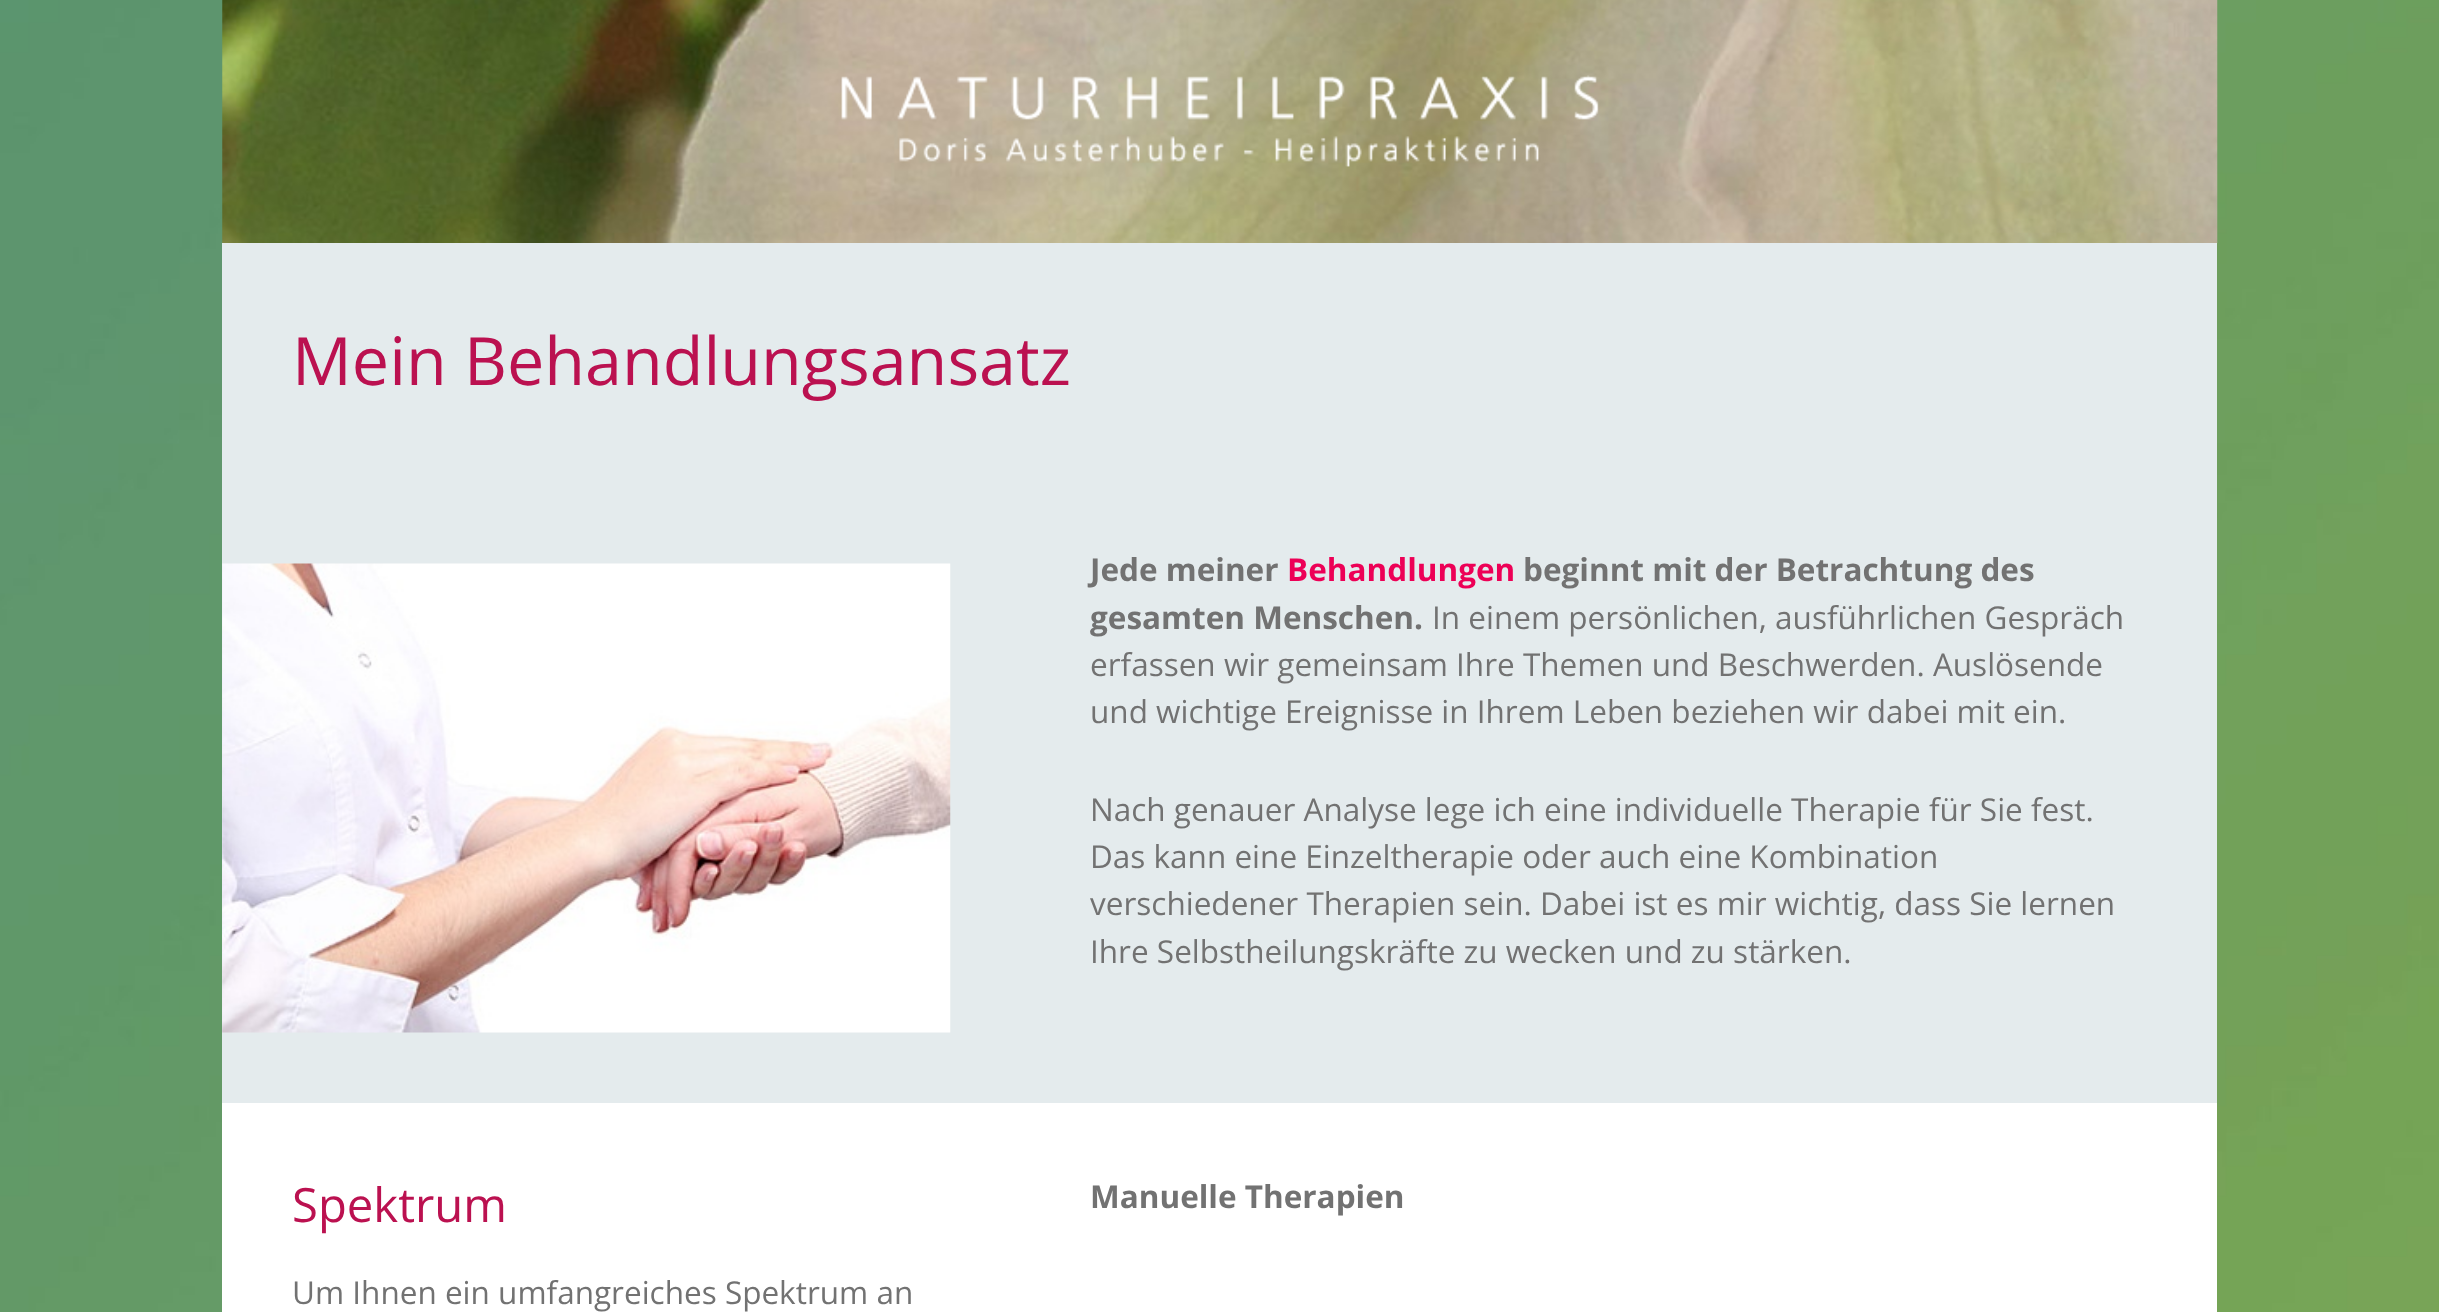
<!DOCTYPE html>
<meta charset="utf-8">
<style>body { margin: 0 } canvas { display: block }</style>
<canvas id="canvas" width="2439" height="1312"></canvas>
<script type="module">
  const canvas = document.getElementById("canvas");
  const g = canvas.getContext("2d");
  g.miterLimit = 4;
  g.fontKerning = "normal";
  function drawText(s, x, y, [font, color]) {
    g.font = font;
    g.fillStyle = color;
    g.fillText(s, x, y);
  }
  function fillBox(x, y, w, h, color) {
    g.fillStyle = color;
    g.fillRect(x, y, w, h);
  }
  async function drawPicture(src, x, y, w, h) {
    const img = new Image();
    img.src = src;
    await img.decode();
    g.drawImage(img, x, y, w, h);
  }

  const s1 = ["66.5px Open Sans", "#BB1150"];
  const s2 = ["bold 31.5px Open Sans", "#727272"];
  const s3 = ["bold 31.5px Open Sans", "#ED0056"];
  const s4 = ["31.5px Open Sans", "#727272"];
  const s5 = ["47.25px Open Sans", "#BB1150"];

  fillBox(0, 0, 2439, 1312, "#FFFFFF");
  await drawPicture("pic1.png", 0, 0, 2439, 1312);
  await drawPicture("pic2.png", 222, 0, 1996, 244);
  await drawPicture("pic3.png", 841, 75, 758, 92);
  fillBox(222, 243, 1995, 233, "#E4EBED");
  drawText("Mein Behandlungsansatz", 292, 385, s1);
  fillBox(222, 476, 1995, 627, "#E4EBED");
  await drawPicture("pic4.png", 222, 563, 729, 470);
  drawText("Jede meiner", 1090, 581, s2);
  drawText("Behandlungen", 1287, 581, s3);
  drawText("beginnt mit der Betrachtung des", 1523, 581, s2);
  drawText("gesamten Menschen.", 1090, 629, s2);
  drawText("In einem persönlichen, ausführlichen Gespräch", 1432, 629, s4);
  drawText("erfassen wir gemeinsam Ihre Themen und Beschwerden. Auslösende", 1090, 676, s4);
  drawText("und wichtige Ereignisse in Ihrem Leben beziehen wir dabei mit ein.", 1090, 723, s4);
  drawText("Nach genauer Analyse lege ich eine individuelle Therapie für Sie fest.", 1090, 821, s4);
  drawText("Das kann eine Einzeltherapie oder auch eine Kombination", 1090, 868, s4);
  drawText("verschiedener Therapien sein. Dabei ist es mir wichtig, dass Sie lernen", 1090, 915, s4);
  drawText("Ihre Selbstheilungskräfte zu wecken und zu stärken.", 1090, 963, s4);
  fillBox(222, 1103, 1995, 209, "#FFFFFF");
  drawText("Spektrum", 292, 1222, s5);
  drawText("Um Ihnen ein umfangreiches Spektrum an", 292, 1304, s4);
  drawText("Manuelle Therapien", 1090, 1208, s2);
</script>
